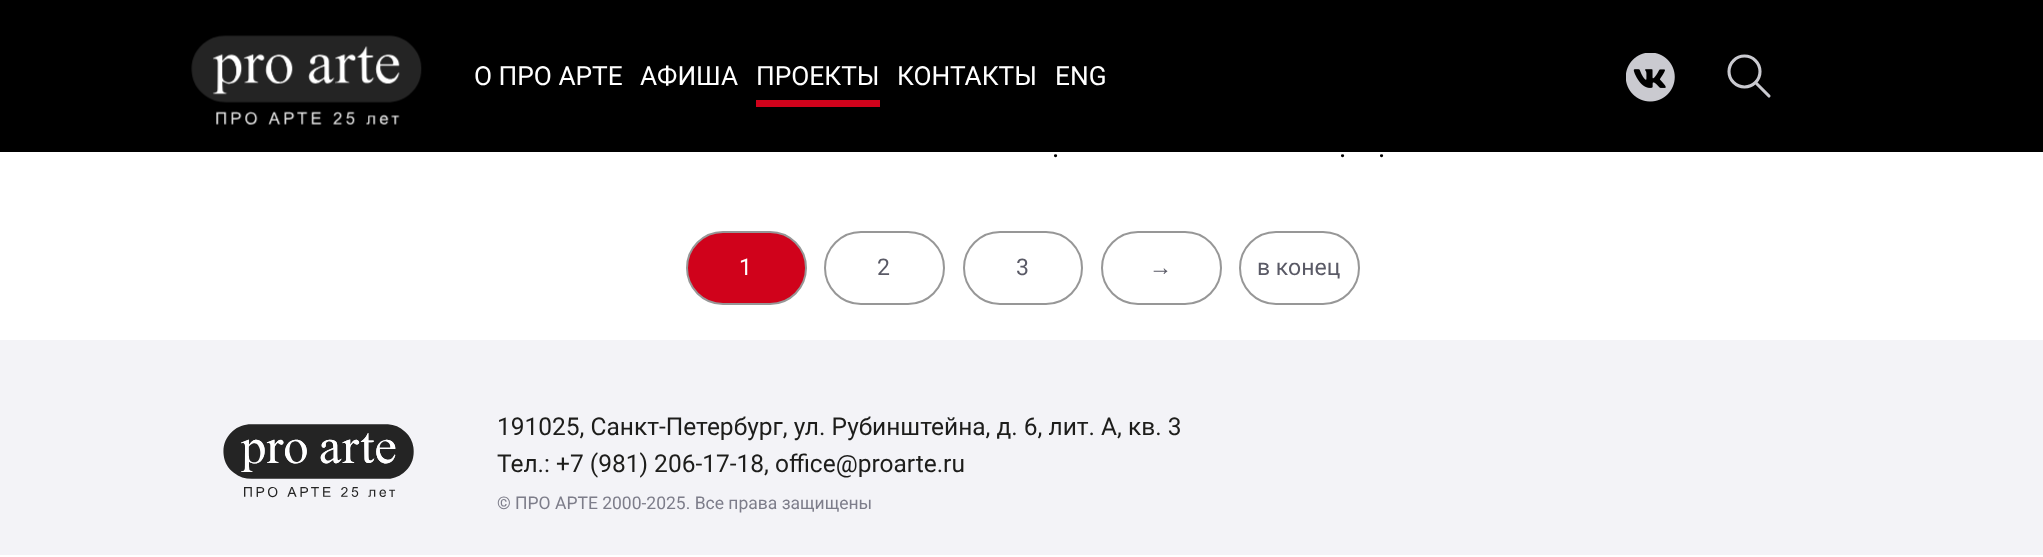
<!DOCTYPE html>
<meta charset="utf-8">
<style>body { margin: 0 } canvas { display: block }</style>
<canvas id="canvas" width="2043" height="557"></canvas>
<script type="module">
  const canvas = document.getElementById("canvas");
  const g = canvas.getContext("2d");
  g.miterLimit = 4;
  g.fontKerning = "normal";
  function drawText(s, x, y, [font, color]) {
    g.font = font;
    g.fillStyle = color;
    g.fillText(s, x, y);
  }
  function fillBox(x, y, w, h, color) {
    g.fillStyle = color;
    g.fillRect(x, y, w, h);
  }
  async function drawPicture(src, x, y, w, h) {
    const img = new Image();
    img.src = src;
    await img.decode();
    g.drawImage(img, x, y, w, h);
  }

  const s1 = ["26.25px Roboto", "#FFFFFF"];
  const s2 = ["28px Roboto", "#000000"];
  const s3 = ["23px Roboto", "#FFFFFF"];
  const s4 = ["23px Roboto", "#5A5A66"];
  const s5 = ["23px Liberation Sans", "#5A5A66"];
  const s6 = ["24.5px Roboto", "#1D1D1B"];
  const s7 = ["17.5px Roboto", "#7D7D8A"];

  fillBox(0, 0, 2043, 557, "#FFFFFF");
  fillBox(0, 0, 2043, 152, "#000000");
  await drawPicture("pic1.png", 191, 35, 231, 90);
  drawText("О ПРО АРТЕ", 474, 85, s1);
  drawText("АФИША", 640, 85, s1);
  drawText("ПРОЕКТЫ", 756, 85, s1);
  fillBox(756, 100, 124, 7, "#D0021B");
  drawText("КОНТАКТЫ", 897, 85, s1);
  drawText("ENG", 1055, 85, s1);
  await drawPicture("pic2.png", 1626, 53, 49, 49);
  g.beginPath();
  g.moveTo(1756.5, 83.5);
  g.lineTo(1769, 96);
  g.strokeStyle = "#CACAD0";
  g.lineWidth = 3.1;
  g.lineCap = "round";
  g.lineJoin = "bevel";
  g.stroke();
  g.beginPath();
  g.arc(1744.5, 71.5, 15.5, 0, Math.PI * 2);
  g.stroke();
  drawText(".", 1052, 157, s2);
  drawText(".", 1339, 157, s2);
  drawText(".", 1378, 157, s2);
  g.fillStyle = "#D0021B";
  g.beginPath();
  g.roundRect(687, 232, 119, 72, 36);
  g.fill();
  g.strokeStyle = "#979797";
  g.lineWidth = 2;
  g.lineJoin = "miter";
  g.stroke();
  drawText("1", 739, 275, s3);
  g.beginPath();
  g.roundRect(825, 232, 119, 72, 36);
  g.stroke();
  drawText("2", 877, 275, s4);
  g.beginPath();
  g.roundRect(964, 232, 118, 72, 36);
  g.stroke();
  drawText("3", 1016, 275, s4);
  g.beginPath();
  g.roundRect(1102, 232, 119, 72, 36);
  g.stroke();
  drawText("→", 1149, 275, s5);
  g.beginPath();
  g.roundRect(1240, 232, 119, 72, 36);
  g.stroke();
  drawText("в конец", 1257, 275, s4);
  fillBox(0, 340, 2043, 215, "#F3F3F7");
  await drawPicture("pic3.png", 223, 424, 191, 74);
  drawText("191025, Санкт-Петербург, ул. Рубинштейна, д. 6, лит. А, кв. 3", 497, 435, s6);
  drawText("Тел.: +7 (981) 206-17-18, office@proarte.ru", 497, 472, s6);
  drawText("© ПРО АРТЕ 2000-2025. Все права защищены", 497, 509, s7);
</script>
